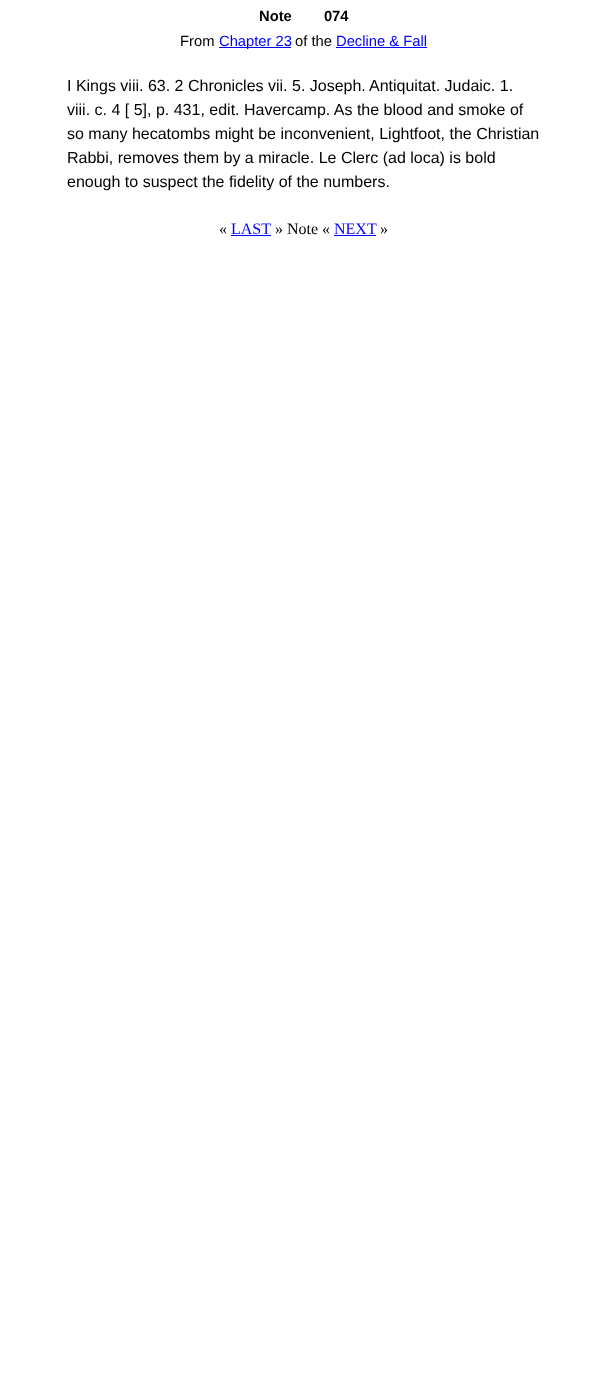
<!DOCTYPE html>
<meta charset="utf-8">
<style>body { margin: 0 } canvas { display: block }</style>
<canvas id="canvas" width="607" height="1380"></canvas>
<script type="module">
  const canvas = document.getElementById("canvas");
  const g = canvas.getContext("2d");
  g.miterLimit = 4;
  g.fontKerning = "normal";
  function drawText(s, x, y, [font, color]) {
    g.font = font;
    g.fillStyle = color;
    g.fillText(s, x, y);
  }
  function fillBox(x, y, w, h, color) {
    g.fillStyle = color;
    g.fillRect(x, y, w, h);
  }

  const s1 = ["bold 14.75px Liberation Sans", "#000000"];
  const s2 = ["14.75px Liberation Sans", "#000000"];
  const s3 = ["14.75px Liberation Sans", "#0000FF"];
  const s4 = ["16px Liberation Sans", "#000000"];
  const s5 = ["16px Liberation Serif", "#000000"];
  const s6 = ["16px Liberation Serif", "#0000FF"];

  fillBox(0, 0, 607, 1380, "#FFFFFF");
  g.wordSpacing = "28px";
  drawText("Note 074", 259, 21, s1);
  g.wordSpacing = "0px";
  drawText("From", 180, 46, s2);
  fillBox(219, 47, 72, 1, "#0000FF");
  drawText("Chapter 23", 219, 46, s3);
  drawText("of the", 295, 46, s2);
  drawText("Decline & Fall", 336, 46, s3);
  fillBox(336, 47, 91, 1, "#0000FF");
  drawText("I Kings viii. 63. 2 Chronicles vii. 5. Joseph.", 67, 91, s4);
  drawText("Antiquitat. Judaic. 1.", 369, 91, s4);
  drawText("viii. c. 4 [ 5], p. 431, edit. Havercamp. As the blood and smoke of", 67, 115, s4);
  drawText("so many hecatombs might be inconvenient, Lightfoot, the Christian", 67, 139, s4);
  drawText("Rabbi, removes them by a miracle. Le Clerc (ad loca) is bold", 67, 163, s4);
  drawText("enough to suspect the fidelity of the numbers.", 67, 187, s4);
  drawText("«", 219, 234, s5);
  drawText("LAST", 231, 234, s6);
  fillBox(231, 235, 40, 1, "#0000FF");
  drawText("» Note «", 275, 234, s5);
  drawText("NEXT", 334, 234, s6);
  fillBox(334, 235, 42, 1, "#0000FF");
  drawText("»", 380, 234, s5);
</script>
